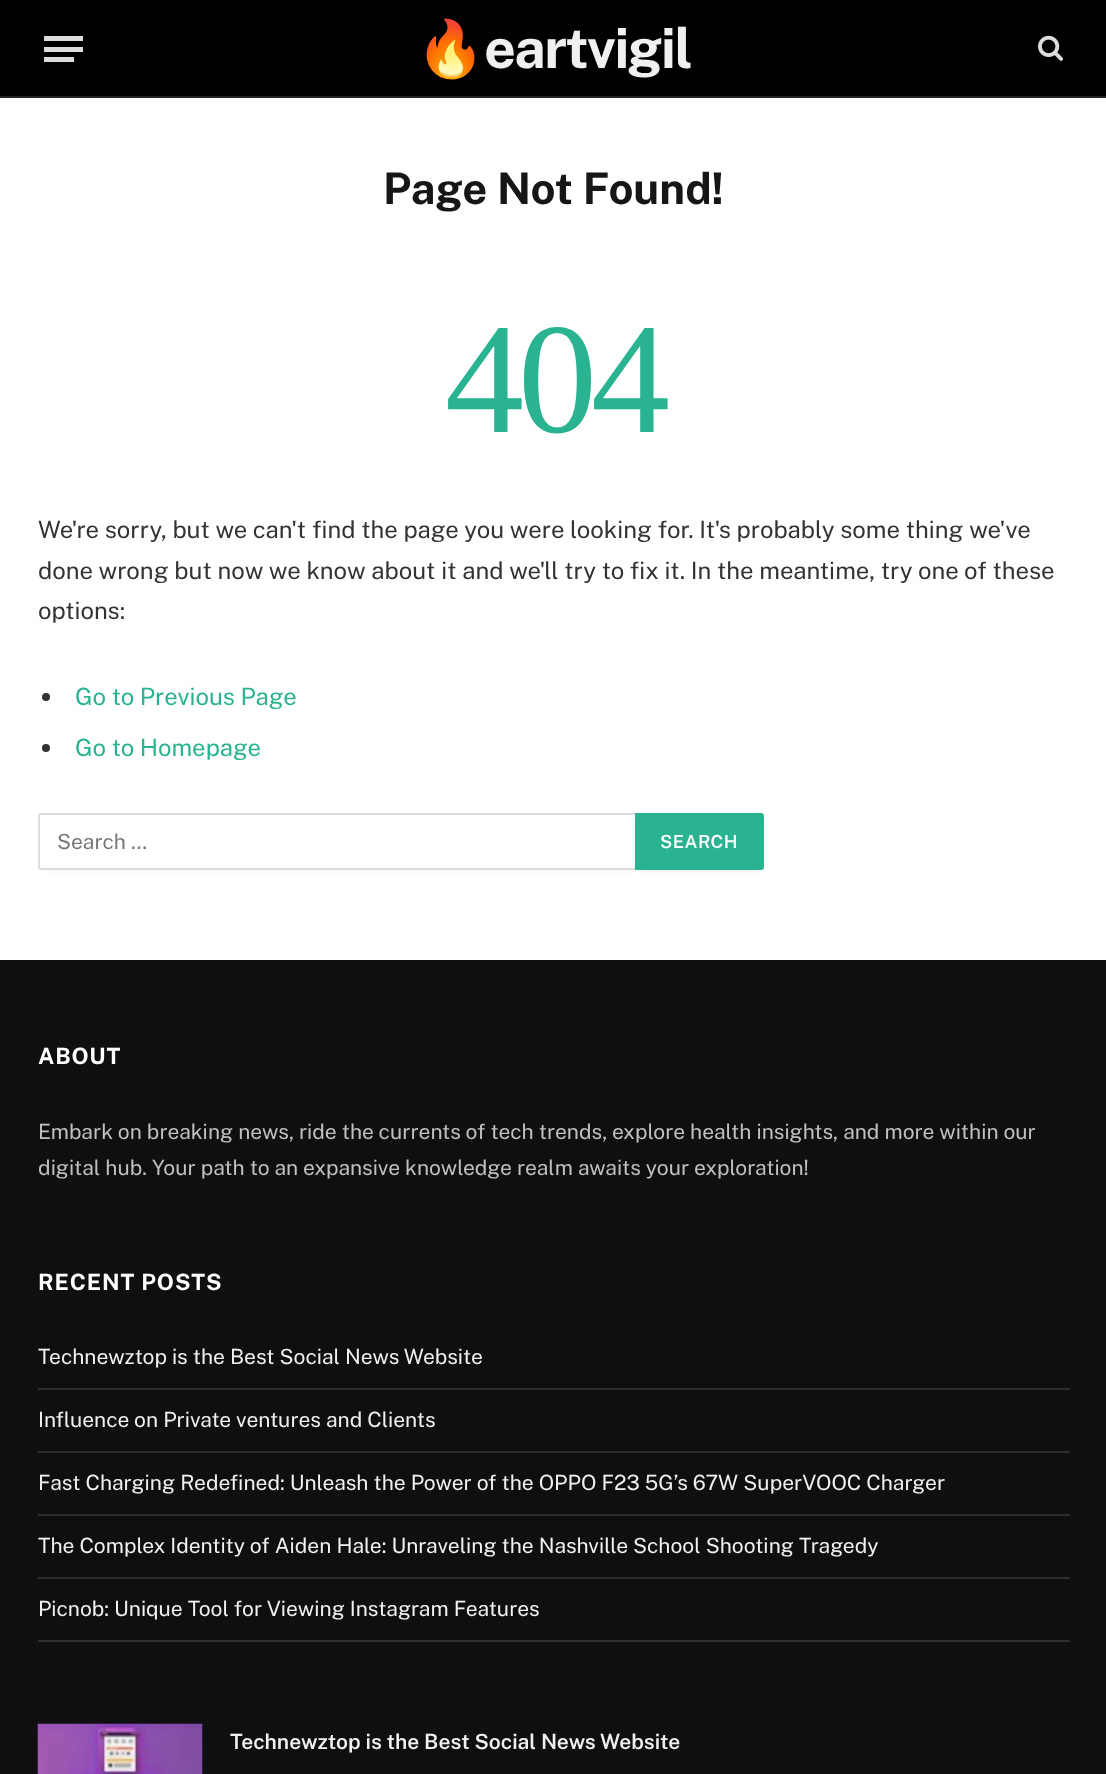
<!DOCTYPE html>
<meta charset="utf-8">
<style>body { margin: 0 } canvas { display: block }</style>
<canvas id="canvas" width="1106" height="1774"></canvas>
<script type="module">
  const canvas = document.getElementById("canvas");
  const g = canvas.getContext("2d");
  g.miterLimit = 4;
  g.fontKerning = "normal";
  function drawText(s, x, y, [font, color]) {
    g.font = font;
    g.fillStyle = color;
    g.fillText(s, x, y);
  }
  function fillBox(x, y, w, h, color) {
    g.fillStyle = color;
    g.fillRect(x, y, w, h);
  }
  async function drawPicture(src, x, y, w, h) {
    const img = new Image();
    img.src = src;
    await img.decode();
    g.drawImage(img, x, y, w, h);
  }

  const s1 = ["bold 55.5px Noto Color Emoji", "#F0F0F0"];
  const s2 = ["bold 55.5px Public Sans", "#F0F0F0"];
  const s3 = ["bold 43.5px Public Sans", "#161616"];
  const s4 = ["158px Liberation Serif", "#2AB391"];
  const s5 = ["23.9px Public Sans", "#333333"];
  const s6 = ["23.9px Public Sans", "#2AB391"];
  const s7 = ["21px Public Sans", "#777777"];
  const s8 = ["600 18px Public Sans", "#FFFFFF"];
  const s9 = ["bold 22.5px Public Sans", "#FFFFFF"];
  const s10 = ["21px Public Sans", "#C0C0C0"];
  const s11 = ["21px Public Sans", "#F0F0F0"];
  const s12 = ["600 21px Public Sans", "#F0F0F0"];

  fillBox(0, 0, 1106, 1774, "#FFFFFF");
  fillBox(0, 0, 1106, 96, "#000000");
  fillBox(0, 96, 1106, 2, "#222222");
  fillBox(44, 57, 30, 5, "#DDDDDD");
  fillBox(44, 36, 39, 5, "#DDDDDD");
  fillBox(44, 47, 39, 5, "#DDDDDD");
  g.letterSpacing = "-1.5px";
  drawText("🔥", 416, 68, s1);
  drawText("eartvigil", 484, 68, s2);
  await drawPicture("pic1.png", 1038, 35, 25, 26);
  g.letterSpacing = "0px";
  drawText("Page Not Found!", 383, 204, s3);
  g.letterSpacing = "-6px";
  drawText("404", 445, 432, s4);
  g.letterSpacing = "0px";
  drawText("We're sorry, but we can't find the page you were looking for. It's probably some thing we've", 38, 538, s5);
  drawText("done wrong but now we know about it and we'll try to fix it. In the meantime, try one of these", 38, 579, s5);
  drawText("options:", 38, 619, s5);
  g.beginPath();
  g.arc(46, 697, 4, 0, Math.PI * 2);
  g.fill();
  drawText("Go to Previous Page", 75, 705, s6);
  g.fillStyle = "#333333";
  g.beginPath();
  g.arc(46, 748, 4, 0, Math.PI * 2);
  g.fill();
  drawText("Go to Homepage", 75, 756, s6);
  g.fillStyle = "rgba(0, 0, 0, 0.1)";
  g.filter = "blur(5px)";
  g.beginPath();
  g.rect(44, 822, 588, 45);
  g.fill();
  g.filter = "none";
  g.fillStyle = "#FFFFFF";
  g.beginPath();
  g.roundRect(39, 814, 598, 55, 2);
  g.fill();
  g.strokeStyle = "#DDDDDD";
  g.lineWidth = 2;
  g.stroke();
  drawText("Search …", 57, 849, s7);
  g.fillStyle = "rgba(0, 0, 0, 0.16)";
  g.filter = "blur(5px)";
  g.beginPath();
  g.rect(641, 822, 117, 45);
  g.fill();
  g.filter = "none";
  g.fillStyle = "#2AB391";
  g.beginPath();
  g.roundRect(635, 813, 129, 57, [0, 3, 3, 0]);
  g.fill();
  g.letterSpacing = "0.5px";
  drawText("SEARCH", 660, 848, s8);
  fillBox(0, 960, 1106, 814, "#0F0F11");
  g.letterSpacing = "0.9px";
  drawText("ABOUT", 38, 1064, s9);
  g.letterSpacing = "0px";
  drawText("Embark on breaking news, ride the currents of tech trends, explore health insights, and more within our", 38, 1139, s10);
  drawText("digital hub. Your path to an expansive knowledge realm awaits your exploration!", 38, 1175, s10);
  g.letterSpacing = "0.9px";
  drawText("RECENT POSTS", 38, 1290, s9);
  fillBox(38, 1388, 1032, 2, "#2E2E30");
  g.letterSpacing = "0px";
  drawText("Technewztop is the Best Social News Website", 38, 1364, s11);
  fillBox(38, 1451, 1032, 2, "#2E2E30");
  drawText("Influence on Private ventures and Clients", 38, 1427, s11);
  fillBox(38, 1514, 1032, 2, "#2E2E30");
  drawText("Fast Charging Redefined: Unleash the Power of the OPPO F23 5G’s 67W SuperVOOC Charger", 38, 1490, s11);
  fillBox(38, 1577, 1032, 2, "#2E2E30");
  drawText("The Complex Identity of Aiden Hale: Unraveling the Nashville School Shooting Tragedy", 38, 1553, s11);
  fillBox(38, 1640, 1032, 2, "#2E2E30");
  drawText("Picnob: Unique Tool for Viewing Instagram Features", 38, 1616, s11);
  await drawPicture("pic2.png", 37, 1723, 166, 51);
  drawText("Technewztop is the Best Social News Website", 230, 1749, s12);
</script>
